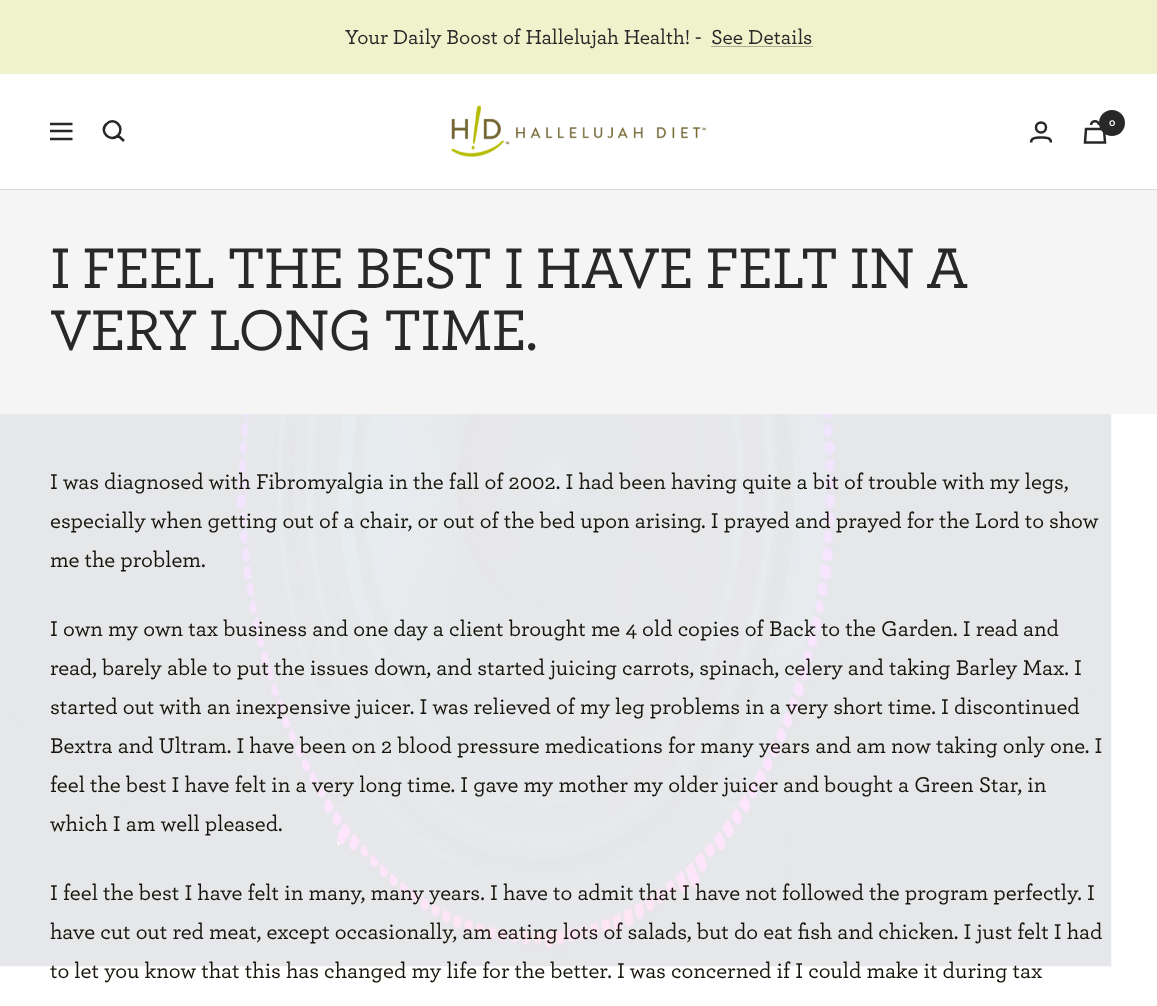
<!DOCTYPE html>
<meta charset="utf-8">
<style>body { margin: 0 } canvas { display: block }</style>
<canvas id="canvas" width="1157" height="1006"></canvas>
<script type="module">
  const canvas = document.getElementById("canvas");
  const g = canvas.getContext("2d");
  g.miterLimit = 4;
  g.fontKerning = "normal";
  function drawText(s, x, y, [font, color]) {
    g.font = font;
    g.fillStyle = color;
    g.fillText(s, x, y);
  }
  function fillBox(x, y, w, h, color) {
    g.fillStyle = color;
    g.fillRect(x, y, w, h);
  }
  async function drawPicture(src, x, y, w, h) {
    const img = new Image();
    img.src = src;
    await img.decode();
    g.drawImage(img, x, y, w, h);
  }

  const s1 = ["500 21.25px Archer", "#282828"];
  const s2 = ["bold 11px Archer", "#FFFFFF"];
  const s3 = ["500 60px Archer", "#282828"];
  const s4 = ["500 22.5px Archer", "#17140B"];

  fillBox(0, 0, 1157, 1006, "#FFFFFF");
  fillBox(0, 0, 1157, 74, "#F0F2CC");
  drawText("Your Daily Boost of Hallelujah Health! -", 345, 44, s1);
  drawText("See Details", 711, 44, s1);
  fillBox(711, 46, 102, 1, "#AAAB93");
  g.fillStyle = "#DCDCDA";
  g.beginPath();
  g.moveTo(0, 189);
  g.lineTo(0, 190);
  g.lineTo(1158, 190);
  g.lineTo(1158, 75);
  g.lineTo(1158, 189);
  g.closePath();
  g.fill();
  g.beginPath();
  g.moveTo(50, 124);
  g.lineTo(72.5, 124);
  g.moveTo(50, 139);
  g.lineTo(72.5, 139);
  g.closePath();
  g.moveTo(50, 131);
  g.lineTo(72.5, 131);
  g.closePath();
  g.strokeStyle = "#282828";
  g.lineWidth = 2.5;
  g.stroke();
  g.beginPath();
  g.moveTo(118, 135.5);
  g.bezierCurveTo(125.5, 127.5, 114, 116, 106.5, 124);
  g.bezierCurveTo(98.5, 131.5, 110, 143, 118, 135.5);
  g.closePath();
  g.moveTo(118, 135.5);
  g.lineTo(124, 141);
  g.stroke();
  await drawPicture("pic1.png", 451, 105, 255, 53);
  g.beginPath();
  g.arc(1041, 127.5, 5, 0, Math.PI * 2);
  g.stroke();
  g.beginPath();
  g.moveTo(1031, 142.5);
  g.bezierCurveTo(1031, 137, 1037.5, 137.5, 1041, 137.5);
  g.bezierCurveTo(1045, 137.5, 1051, 137, 1051, 142.5);
  g.stroke();
  g.beginPath();
  g.moveTo(1086, 129);
  g.lineTo(1104, 129);
  g.lineTo(1105, 142.5);
  g.lineTo(1085, 142.5);
  g.closePath();
  g.moveTo(1099, 125);
  g.bezierCurveTo(1099, 120, 1091, 120, 1091, 125);
  g.stroke();
  g.fillStyle = "#282828";
  g.beginPath();
  g.arc(1112, 123, 13, 0, Math.PI * 2);
  g.fill();
  drawText("0", 1109, 126, s2);
  fillBox(0, 190, 1157, 224, "#F5F5F5");
  g.letterSpacing = "-1.25px";
  drawText("I FEEL THE BEST I HAVE FELT IN A", 50, 288, s3);
  drawText("VERY LONG TIME.", 50, 350, s3);
  await drawPicture("pic2.png", 0, 414, 1112, 553);
  g.letterSpacing = "0px";
  drawText("I was diagnosed with Fibromyalgia in the fall of 2002. I had been having quite a bit of trouble with my legs,", 50, 489, s4);
  drawText("especially when getting out of a chair, or out of the bed upon arising. I prayed and prayed for the Lord to show", 50, 528, s4);
  drawText("me the problem.", 50, 567, s4);
  drawText("I own my own tax business and one day a client brought me 4 old copies of Back to the Garden. I read and", 50, 636, s4);
  drawText("read, barely able to put the issues down, and started juicing carrots, spinach, celery and taking Barley Max. I", 50, 675, s4);
  drawText("started out with an inexpensive juicer. I was relieved of my leg problems in a very short time. I discontinued", 50, 714, s4);
  drawText("Bextra and Ultram. I have been on 2 blood pressure medications for many years and am now taking only one. I", 50, 753, s4);
  drawText("feel the best I have felt in a very long time. I gave my mother my older juicer and bought a Green Star, in", 50, 792, s4);
  drawText("which I am well pleased.", 50, 831, s4);
  drawText("I feel the best I have felt in many, many years. I have to admit that I have not followed the program perfectly. I", 50, 900, s4);
  drawText("have cut out red meat, except occasionally, am eating lots of salads, but do eat fish and chicken. I just felt I had", 50, 939, s4);
  drawText("to let you know that this has changed my life for the better. I was concerned if I could make it during tax", 50, 978, s4);
</script>
